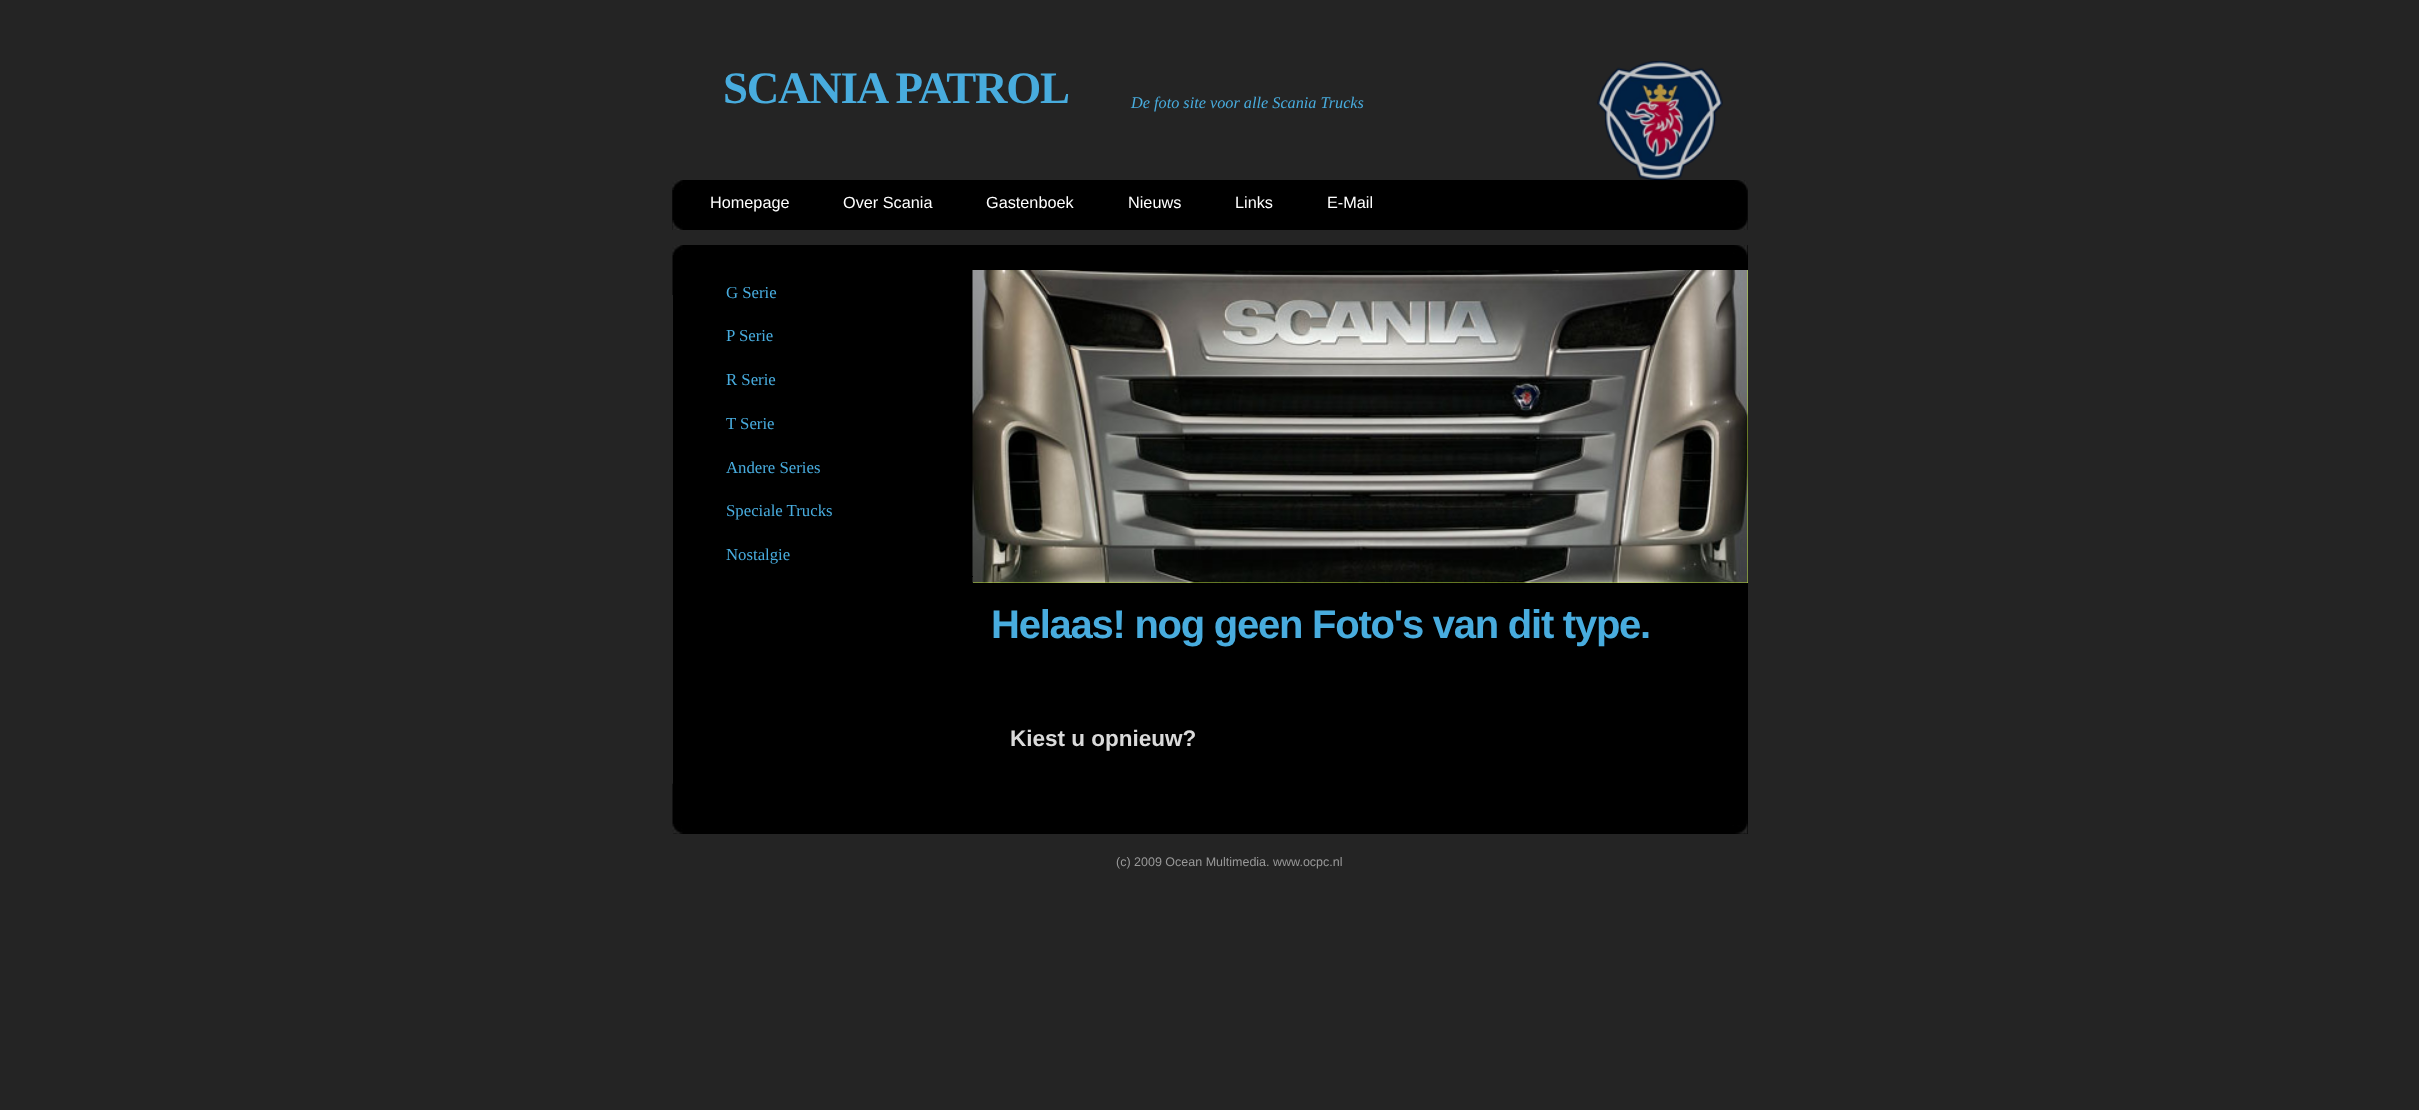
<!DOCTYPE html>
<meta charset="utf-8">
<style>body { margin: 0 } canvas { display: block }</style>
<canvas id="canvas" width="2419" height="1110"></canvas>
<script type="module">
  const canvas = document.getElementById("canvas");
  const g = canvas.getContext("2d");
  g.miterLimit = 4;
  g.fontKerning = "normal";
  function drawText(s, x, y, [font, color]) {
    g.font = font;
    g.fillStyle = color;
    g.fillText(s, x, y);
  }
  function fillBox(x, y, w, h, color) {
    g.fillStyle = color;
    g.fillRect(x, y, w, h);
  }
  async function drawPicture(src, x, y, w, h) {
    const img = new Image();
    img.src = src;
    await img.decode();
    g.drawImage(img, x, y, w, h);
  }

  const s1 = ["bold 45px Liberation Serif", "#48ACDE"];
  const s2 = ["italic 16.25px Liberation Serif", "#48ACDE"];
  const s3 = ["16.25px Liberation Sans", "#FFFFFF"];
  const s4 = ["16.75px Liberation Serif", "#48ACDE"];
  const s5 = ["bold 40px Liberation Sans", "#48ACDE"];
  const s6 = ["bold 22.5px Liberation Sans", "#DADADA"];
  const s7 = ["12.5px Liberation Sans", "#999999"];

  fillBox(0, 0, 2419, 1110, "#242424");
  g.letterSpacing = "-1.25px";
  drawText("SCANIA PATROL", 723, 103, s1);
  g.letterSpacing = "0px";
  drawText("De foto site voor alle Scania Trucks", 1131, 108, s2);
  await drawPicture("pic1.png", 1597, 61, 126, 119);
  await drawPicture("pic2.png", 672, 180, 1076, 50);
  await drawPicture("pic3.png", 672, 188, 1076, 42);
  drawText("Homepage", 710, 208, s3);
  drawText("Over Scania", 843, 208, s3);
  drawText("Gastenboek", 986, 208, s3);
  drawText("Nieuws", 1128, 208, s3);
  drawText("Links", 1235, 208, s3);
  drawText("E-Mail", 1327, 208, s3);
  fillBox(673, 245, 1075, 589, "#000000");
  await drawPicture("pic4.png", 672, 245, 1076, 50);
  await drawPicture("pic5.png", 672, 783, 1076, 51);
  fillBox(973, 270, 775, 313, "#BCE03E");
  await drawPicture("pic6.png", 972, 270, 776, 313);
  fillBox(972, 576, 1, 1, "#000000");
  drawText("G Serie", 726, 298, s4);
  drawText("P Serie", 726, 341, s4);
  drawText("R Serie", 726, 385, s4);
  drawText("T Serie", 726, 429, s4);
  drawText("Andere Series", 726, 473, s4);
  drawText("Speciale Trucks", 726, 516, s4);
  drawText("Nostalgie", 726, 560, s4);
  g.letterSpacing = "-1.25px";
  drawText("Helaas! nog geen Foto's van dit type.", 991, 638, s5);
  g.letterSpacing = "0px";
  drawText("Kiest u opnieuw?", 1010, 746, s6);
  drawText("(c) 2009 Ocean Multimedia. www.ocpc.nl", 1116, 866, s7);
</script>
